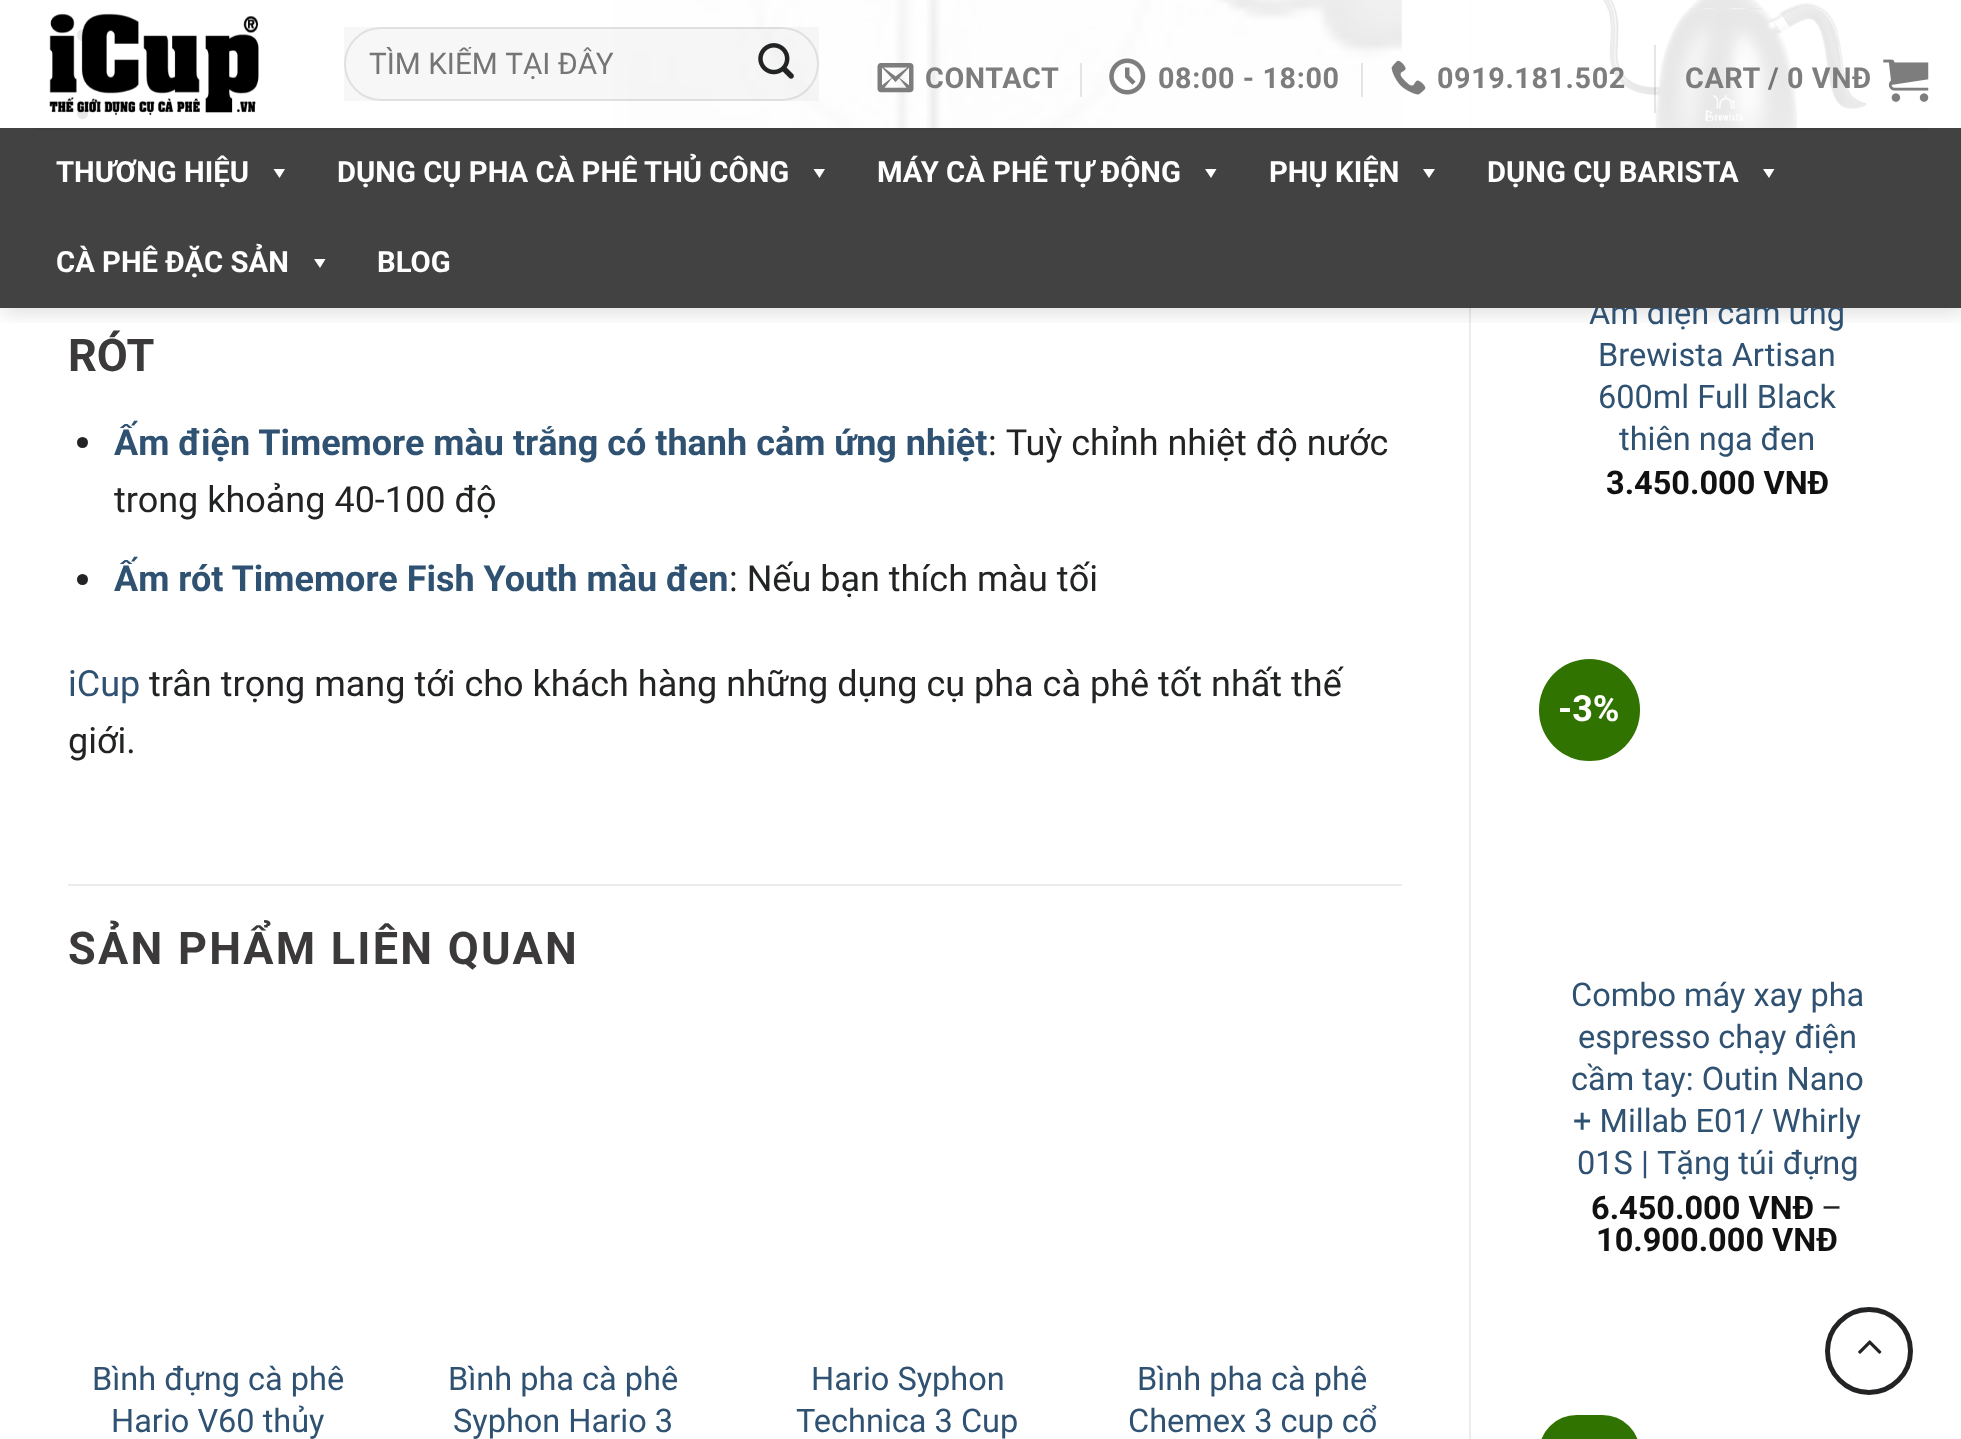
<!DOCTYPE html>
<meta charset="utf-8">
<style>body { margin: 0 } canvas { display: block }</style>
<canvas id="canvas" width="1961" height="1439"></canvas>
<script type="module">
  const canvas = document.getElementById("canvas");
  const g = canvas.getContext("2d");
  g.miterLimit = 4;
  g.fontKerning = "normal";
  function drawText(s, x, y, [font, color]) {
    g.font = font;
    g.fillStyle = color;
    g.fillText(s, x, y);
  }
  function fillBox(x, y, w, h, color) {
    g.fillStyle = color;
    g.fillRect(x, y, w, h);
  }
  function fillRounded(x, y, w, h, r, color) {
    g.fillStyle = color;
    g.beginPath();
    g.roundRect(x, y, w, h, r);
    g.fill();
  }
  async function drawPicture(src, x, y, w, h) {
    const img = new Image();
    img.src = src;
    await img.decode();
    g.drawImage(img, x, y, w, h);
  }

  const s1 = ["29.75px Roboto", "#757575"];
  const s2 = ["bold 28.75px Roboto", "#7D7D7D"];
  const s3 = ["bold 28.75px Roboto", "#757575"];
  const s4 = ["32.5px Roboto", "#305272"];
  const s5 = ["bold 29.25px Roboto", "#FFFFFF"];
  const s6 = ["bold 45px Roboto", "#3B3939"];
  const s7 = ["bold 36px Roboto", "#305272"];
  const s8 = ["36px Roboto", "#222324"];
  const s9 = ["36px Roboto", "#305272"];
  const s10 = ["bold 32.5px Roboto", "#111111"];
  const s11 = ["bold 36px Roboto", "#FFFFFF"];
  const s12 = ["32.5px Roboto", "#222324"];

  fillBox(0, 0, 1961, 1439, "#FFFFFF");
  fillBox(1469, 0, 2, 1439, "#ECECEC");
  fillRounded(77, 29, 11, 12, 5.5, "#222324");
  g.beginPath();
  g.arc(82.5, 113.5, 5.5, 0, Math.PI * 2);
  g.fill();
  await drawPicture("pic7.png", 614, 0, 788, 128);
  await drawPicture("pic8.png", 1549, 0, 328, 128);
  g.save();
  g.beginPath();
  g.rect(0, 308, 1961, 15);
  g.clip();
  g.fillStyle = "rgba(0, 0, 0, 0.15)";
  g.filter = "blur(11px)";
  g.beginPath();
  g.rect(2, 2, 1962, 309);
  g.fill();
  g.filter = "none";
  g.restore();
  fillBox(77, 0, 1800, 128, "rgba(255, 255, 255, 0.9)");
  await drawPicture("pic1.png", 49, 13, 210, 103);
  fillBox(344, 27, 475, 74, "rgba(0, 0, 0, 0.03)");
  g.beginPath();
  g.roundRect(345, 28, 473, 72, 36);
  g.strokeStyle = "rgba(0, 0, 0, 0.09)";
  g.lineWidth = 2;
  g.stroke();
  g.save();
  g.beginPath();
  g.rect(369, 47, 416, 34);
  g.clip();
  drawText("TÌM KIẾM TẠI ĐÂY", 369, 74, s1);
  g.restore();
  await drawPicture("pic2.png", 758, 43, 36, 36);
  await drawPicture("pic3.png", 877, 63, 37, 30);
  g.letterSpacing = "0.6px";
  drawText("CONTACT", 925, 88, s2);
  fillBox(1080, 63, 2, 34, "#E4E4E4");
  await drawPicture("pic4.png", 1109, 58, 37, 37);
  drawText("08:00 - 18:00", 1158, 88, s2);
  fillBox(1361, 63, 2, 34, "#E4E4E4");
  await drawPicture("pic5.png", 1391, 60, 35, 35);
  drawText("0919.181.502", 1437, 88, s2);
  fillBox(1654, 45, 2, 68, "rgba(0, 0, 0, 0.1)");
  drawText("CART", 1685, 88, s2);
  drawText("/", 1768, 88, s3);
  drawText("0 VNĐ", 1787, 88, s2);
  await drawPicture("pic6.png", 1883, 59, 46, 43);
  g.letterSpacing = "0px";
  drawText("Ấm điện cảm ứng", 1589, 324, s4);
  fillBox(0, 128, 1961, 180, "#424242");
  fillBox(34, 128, 1894, 2, "#3F3F3F");
  drawText("THƯƠNG HIỆU", 56, 182, s5);
  g.beginPath();
  g.moveTo(285, 169);
  g.lineTo(279.5, 178);
  g.lineTo(273.5, 169);
  g.closePath();
  g.fill();
  drawText("DỤNG CỤ PHA CÀ PHÊ THỦ CÔNG", 337, 182, s5);
  g.beginPath();
  g.moveTo(825, 169);
  g.lineTo(819.5, 178);
  g.lineTo(813.5, 169);
  g.closePath();
  g.fill();
  drawText("MÁY CÀ PHÊ TỰ ĐỘNG", 877, 182, s5);
  g.beginPath();
  g.moveTo(1216.5, 169);
  g.lineTo(1211, 178);
  g.lineTo(1205, 169);
  g.closePath();
  g.fill();
  drawText("PHỤ KIỆN", 1269, 182, s5);
  g.beginPath();
  g.moveTo(1435, 169);
  g.lineTo(1429, 178);
  g.lineTo(1423, 169);
  g.closePath();
  g.fill();
  drawText("DỤNG CỤ BARISTA", 1487, 182, s5);
  g.beginPath();
  g.moveTo(1774.5, 169);
  g.lineTo(1769, 178);
  g.lineTo(1763, 169);
  g.closePath();
  g.fill();
  drawText("CÀ PHÊ ĐẶC SẢN", 56, 272, s5);
  g.beginPath();
  g.moveTo(325.5, 259);
  g.lineTo(320, 268);
  g.lineTo(314, 259);
  g.closePath();
  g.fill();
  drawText("BLOG", 377, 272, s5);
  drawText("RÓT", 68, 371, s6);
  g.fillStyle = "#222324";
  g.beginPath();
  g.arc(82.5, 442.5, 5.5, 0, Math.PI * 2);
  g.fill();
  drawText("Ấm điện Timemore màu trắng có thanh cảm ứng nhiệt", 114, 455, s7);
  drawText(": Tuỳ chỉnh nhiệt độ nước", 988, 455, s8);
  drawText("trong khoảng 40-100 độ", 114, 512, s8);
  g.beginPath();
  g.arc(82.5, 579.5, 5.5, 0, Math.PI * 2);
  g.fill();
  drawText("Ấm rót Timemore Fish Youth màu đen", 114, 591, s7);
  drawText(": Nếu bạn thích màu tối", 729, 591, s8);
  drawText("iCup", 68, 696, s9);
  drawText("trân trọng mang tới cho khách hàng những dụng cụ pha cà phê tốt nhất thế", 149, 696, s8);
  drawText("giới.", 68, 753, s8);
  fillBox(68, 884, 1334, 2, "#ECECEC");
  g.letterSpacing = "2.25px";
  drawText("SẢN PHẨM LIÊN QUAN", 68, 964, s6);
  g.letterSpacing = "0px";
  drawText("Bình đựng cà phê", 92, 1390, s4);
  drawText("Hario V60 thủy", 111, 1432, s4);
  drawText("Bình pha cà phê", 448, 1390, s4);
  drawText("Syphon Hario 3", 453, 1432, s4);
  drawText("Hario Syphon", 811, 1390, s4);
  drawText("Technica 3 Cup", 796, 1432, s4);
  drawText("Bình pha cà phê", 1137, 1390, s4);
  drawText("Chemex 3 cup cổ", 1128, 1432, s4);
  drawText("Brewista Artisan", 1598, 366, s4);
  drawText("600ml Full Black", 1598, 408, s4);
  drawText("thiên nga đen", 1619, 450, s4);
  drawText("3.450.000 VNĐ", 1606, 494, s10);
  fillRounded(1539, 659, 101, 102, 50.5, "#317301");
  drawText("-3%", 1558, 721, s11);
  drawText("Combo máy xay pha", 1571, 1006, s4);
  drawText("espresso chạy điện", 1578, 1048, s4);
  drawText("cầm tay: Outin Nano", 1571, 1090, s4);
  drawText("+ Millab E01/ Whirly", 1573, 1132, s4);
  drawText("01S | Tặng túi đựng", 1577, 1174, s4);
  drawText("6.450.000 VNĐ", 1591, 1219, s10);
  drawText("–", 1821, 1219, s12);
  drawText("10.900.000 VNĐ", 1596, 1251, s10);
  fillRounded(1539, 1415, 101, 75, 50.5, "#317301");
  g.beginPath();
  g.arc(1869, 1351, 41.5, 0, Math.PI * 2);
  g.strokeStyle = "#222324";
  g.lineWidth = 5;
  g.stroke();
  await drawPicture("pic9.png", 1858, 1340, 24, 14);
</script>
